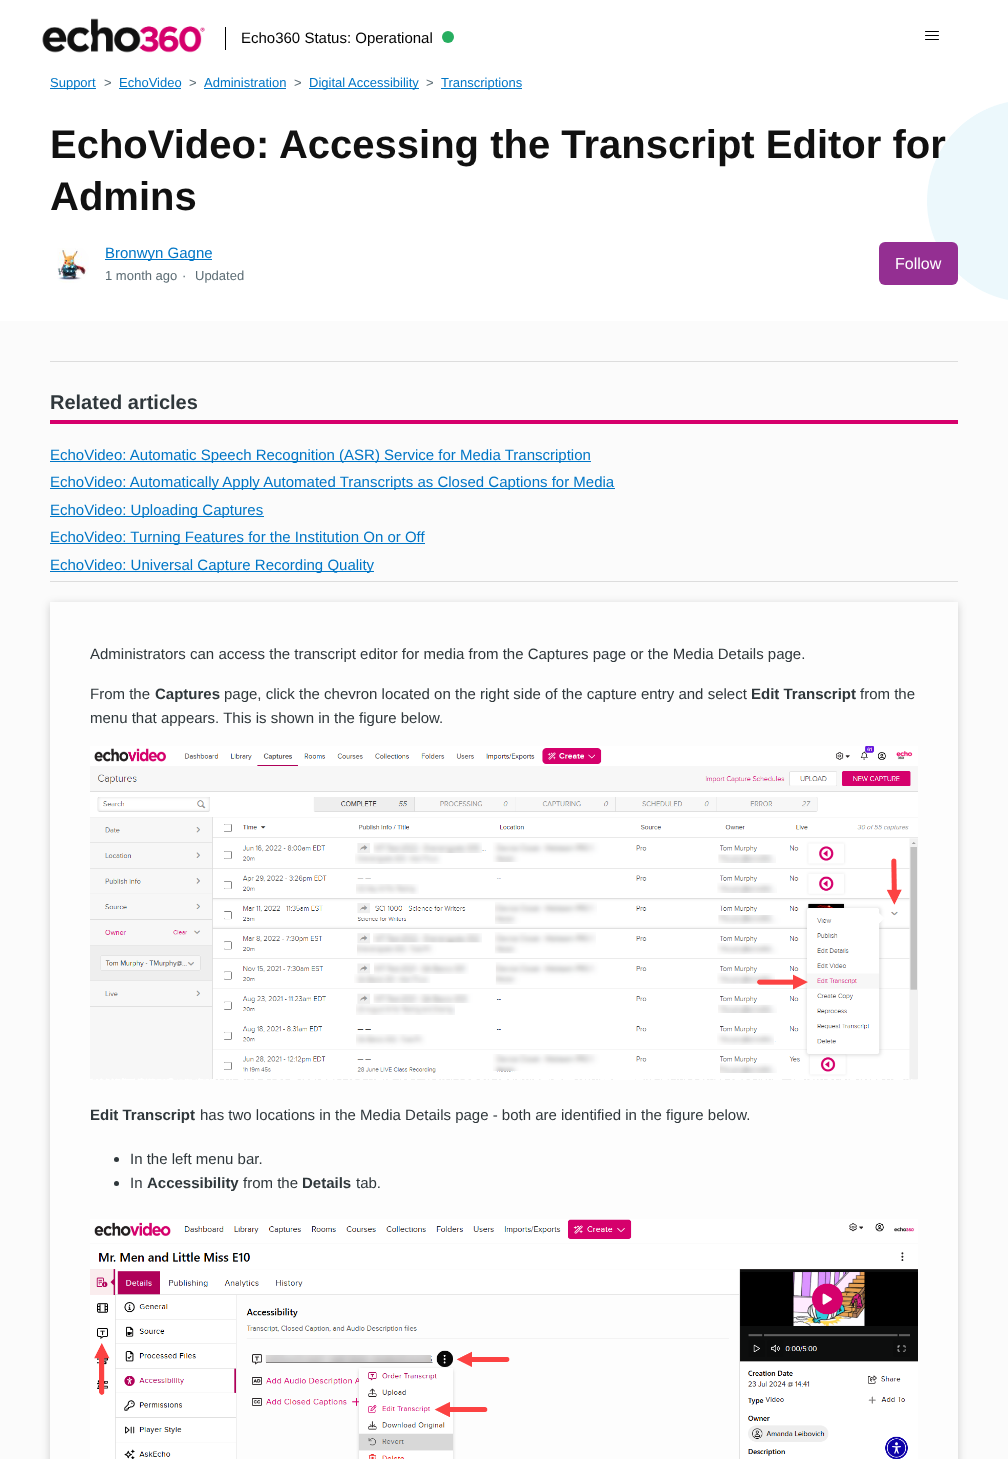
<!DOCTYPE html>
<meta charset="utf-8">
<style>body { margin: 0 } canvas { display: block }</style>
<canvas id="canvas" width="1008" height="1459"></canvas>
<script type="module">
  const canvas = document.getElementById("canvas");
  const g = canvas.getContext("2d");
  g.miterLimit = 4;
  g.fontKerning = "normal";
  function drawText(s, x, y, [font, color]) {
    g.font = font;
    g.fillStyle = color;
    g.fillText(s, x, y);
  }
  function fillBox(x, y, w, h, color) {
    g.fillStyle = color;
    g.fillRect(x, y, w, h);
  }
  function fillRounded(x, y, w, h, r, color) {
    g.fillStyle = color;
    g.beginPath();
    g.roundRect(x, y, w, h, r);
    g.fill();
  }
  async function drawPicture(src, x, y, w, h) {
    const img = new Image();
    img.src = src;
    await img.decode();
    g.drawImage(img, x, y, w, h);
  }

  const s1 = ["15px Liberation Sans", "#000000"];
  const s2 = ["13px Liberation Sans", "#0076C6"];
  const s3 = ["13px Liberation Sans", "#5C6C74"];
  const s4 = ["bold 40px Liberation Sans", "#111111"];
  const s5 = ["15px Liberation Sans", "#0076C6"];
  const s6 = ["16px Liberation Sans", "#FFFFFF"];
  const s7 = ["bold 20px Liberation Sans", "#2F373B"];
  const s8 = ["15px Liberation Sans", "#2F373B"];
  const s9 = ["bold 15px Liberation Sans", "#2F373B"];

  fillBox(0, 0, 1008, 1459, "#FFFFFF");
  await drawPicture("pic1.png", 927, 102, 81, 198);
  await drawPicture("pic2.png", 42, 18, 163, 35);
  fillBox(225, 27, 1, 23, "#000000");
  drawText("Echo360 Status: Operational", 241, 43, s1);
  g.fillStyle = "#27AE60";
  g.beginPath();
  g.arc(448, 37, 6, 0, Math.PI * 2);
  g.fill();
  g.beginPath();
  g.moveTo(925.5, 31.5);
  g.lineTo(938.5, 31.5);
  g.moveTo(925.5, 35.5);
  g.lineTo(938.5, 35.5);
  g.moveTo(925.5, 39.5);
  g.lineTo(938.5, 39.5);
  g.strokeStyle = "#000000";
  g.lineCap = "round";
  g.stroke();
  fillBox(50, 88, 46, 1, "#0076C6");
  drawText("Support", 50, 87, s2);
  drawText(">", 104, 87, s3);
  drawText("EchoVideo", 119, 87, s2);
  fillBox(119, 88, 62, 1, "#0076C6");
  drawText(">", 189, 87, s3);
  drawText("Administration", 204, 87, s2);
  fillBox(204, 88, 82, 1, "#0076C6");
  drawText(">", 294, 87, s3);
  fillBox(309, 88, 110, 1, "#0076C6");
  drawText("Digital Accessibility", 309, 87, s2);
  drawText(">", 426, 87, s3);
  fillBox(441, 88, 81, 1, "#0076C6");
  drawText("Transcriptions", 441, 87, s2);
  drawText("EchoVideo: Accessing the Transcript Editor for", 50, 158, s4);
  drawText("Admins", 50, 210, s4);
  await drawPicture("pic3.png", 57, 248, 32, 35);
  fillBox(105, 259, 107, 1, "#0076C6");
  drawText("Bronwyn Gagne", 105, 258, s5);
  drawText("1 month ago", 105, 280, s3);
  drawText("·", 182, 280, s3);
  drawText("Updated", 195, 280, s3);
  fillRounded(879, 242, 79, 43, 6, "#942F92");
  drawText("Follow", 895, 269, s6);
  fillBox(0, 321, 1008, 1138, "#FBFBFB");
  fillBox(50, 361, 908, 1, "#DDDDDD");
  fillBox(50, 581, 908, 1, "#DDDDDD");
  fillBox(50, 420, 908, 4, "#D6006C");
  drawText("Related articles", 50, 409, s7);
  fillBox(50, 461, 541, 1, "#0076C6");
  drawText("EchoVideo: Automatic Speech Recognition (ASR) Service for Media Transcription", 50, 460, s5);
  fillBox(50, 488, 565, 1, "#0076C6");
  drawText("EchoVideo: Automatically Apply Automated Transcripts as Closed Captions for Media", 50, 487, s5);
  fillBox(50, 516, 214, 1, "#0076C6");
  drawText("EchoVideo: Uploading Captures", 50, 515, s5);
  fillBox(50, 543, 375, 1, "#0076C6");
  drawText("EchoVideo: Turning Features for the Institution On or Off", 50, 542, s5);
  fillBox(50, 571, 324, 1, "#0076C6");
  drawText("EchoVideo: Universal Capture Recording Quality", 50, 570, s5);
  g.fillStyle = "rgba(0, 0, 0, 0.18)";
  g.filter = "blur(4px)";
  g.beginPath();
  g.rect(50, 604, 908, 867);
  g.fill();
  g.filter = "none";
  fillBox(50, 602, 908, 857, "#FDFDFD");
  drawText("Administrators can access the transcript editor for media from the Captures page or the Media Details page.", 90, 659, s8);
  drawText("From the", 90, 699, s8);
  drawText("Captures", 155, 699, s9);
  drawText("page, click the chevron located on the right side of the capture entry and select", 224, 699, s8);
  drawText("Edit Transcript", 751, 699, s9);
  drawText("from the", 860, 699, s8);
  drawText("menu that appears. This is shown in the figure below.", 90, 723, s8);
  await drawPicture("pic4.png", 90, 746, 828, 334);
  drawText("Edit Transcript", 90, 1120, s9);
  drawText("has two locations in the Media Details page - both are identified in the figure below.", 200, 1120, s8);
  g.beginPath();
  g.arc(116.5, 1159.5, 2.5, 0, Math.PI * 2);
  g.fill();
  drawText("In the left menu bar.", 130, 1164, s8);
  g.beginPath();
  g.arc(116.5, 1183.5, 2.5, 0, Math.PI * 2);
  g.fill();
  drawText("In", 130, 1188, s8);
  drawText("Accessibility", 147, 1188, s9);
  drawText("from the", 243, 1188, s8);
  drawText("Details", 302, 1188, s9);
  drawText("tab.", 356, 1188, s8);
  await drawPicture("pic5.png", 90, 1219, 828, 240);
</script>
